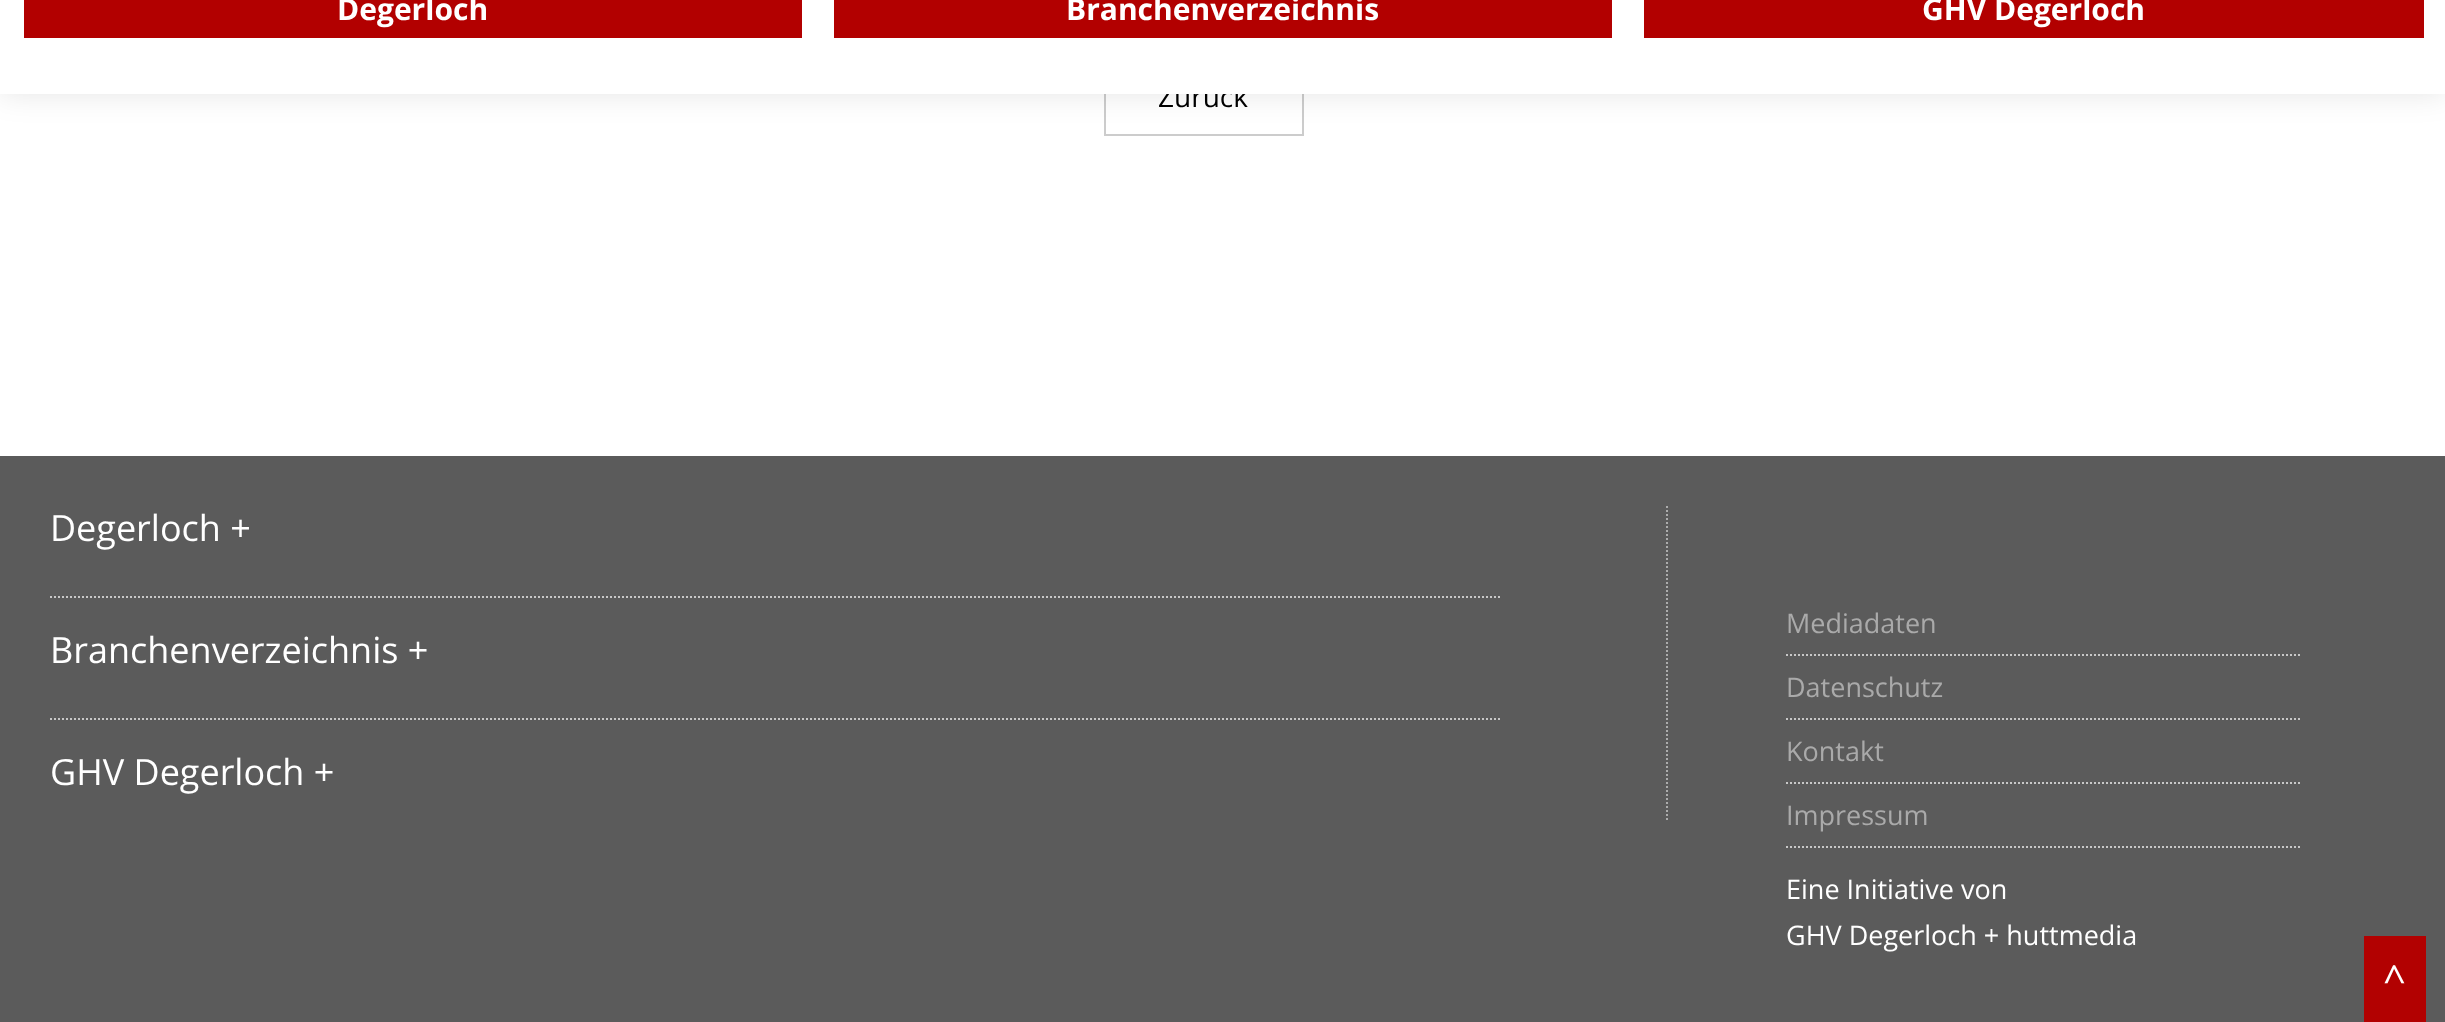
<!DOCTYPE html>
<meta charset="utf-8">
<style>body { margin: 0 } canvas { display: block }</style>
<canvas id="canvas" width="2445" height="1022"></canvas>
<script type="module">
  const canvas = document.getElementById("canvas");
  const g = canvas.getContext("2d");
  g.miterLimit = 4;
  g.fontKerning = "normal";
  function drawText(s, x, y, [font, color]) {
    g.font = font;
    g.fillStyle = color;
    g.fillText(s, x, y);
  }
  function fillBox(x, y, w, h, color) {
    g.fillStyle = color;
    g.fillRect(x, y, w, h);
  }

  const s1 = ["28px Open Sans", "#000000"];
  const s2 = ["bold 30px Open Sans", "#FFFFFF"];
  const s3 = ["40px Open Sans", "#FFFFFF"];
  const s4 = ["36px Open Sans", "#FFFFFF"];
  const s5 = ["27px Open Sans", "#AAAAAA"];
  const s6 = ["27px Open Sans", "#FFFFFF"];

  fillBox(0, 0, 2445, 1022, "#5B5B5B");
  fillBox(0, 94, 2445, 362, "#FFFFFF");
  g.strokeStyle = "#CCCCCC";
  g.lineWidth = 2;
  g.strokeRect(1105, 61, 198, 74);
  g.fillStyle = "rgba(0, 0, 0, 0.1)";
  g.filter = "blur(15px)";
  g.beginPath();
  g.rect(0, -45, 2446, 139);
  g.fill();
  g.filter = "none";
  drawText("Zurück", 1158, 107, s1);
  fillBox(0, 0, 2445, 94, "#FFFFFF");
  fillBox(24, 0, 778, 38, "#B20000");
  drawText("Degerloch", 337, 20, s2);
  fillBox(834, 0, 778, 38, "#B20000");
  drawText("Branchenverzeichnis", 1066, 20, s2);
  fillBox(1644, 0, 780, 38, "#B20000");
  drawText("GHV Degerloch", 1922, 20, s2);
  fillBox(2364, 936, 62, 86, "#B20101");
  drawText("^", 2383, 994, s3);
  g.beginPath();
  g.moveTo(1667, 506);
  g.lineTo(1667, 820);
  g.strokeStyle = "#ADADAD";
  g.setLineDash([2, 2]);
  g.stroke();
  drawText("Degerloch +", 50, 541, s4);
  g.beginPath();
  g.moveTo(50, 597);
  g.lineTo(1502, 597);
  g.strokeStyle = "#C8C8C8";
  g.stroke();
  drawText("Branchenverzeichnis +", 50, 663, s4);
  g.beginPath();
  g.moveTo(50, 719);
  g.lineTo(1502, 719);
  g.stroke();
  drawText("GHV Degerloch +", 50, 785, s4);
  g.beginPath();
  g.moveTo(1786, 655);
  g.lineTo(2302, 655);
  g.stroke();
  drawText("Mediadaten", 1786, 633, s5);
  g.beginPath();
  g.moveTo(1786, 719);
  g.lineTo(2302, 719);
  g.stroke();
  drawText("Datenschutz", 1786, 697, s5);
  g.beginPath();
  g.moveTo(1786, 783);
  g.lineTo(2302, 783);
  g.stroke();
  drawText("Kontakt", 1786, 761, s5);
  g.beginPath();
  g.moveTo(1786, 847);
  g.lineTo(2302, 847);
  g.stroke();
  drawText("Impressum", 1786, 825, s5);
  drawText("Eine Initiative von", 1786, 899, s6);
  drawText("GHV Degerloch + huttmedia", 1786, 945, s6);
</script>
